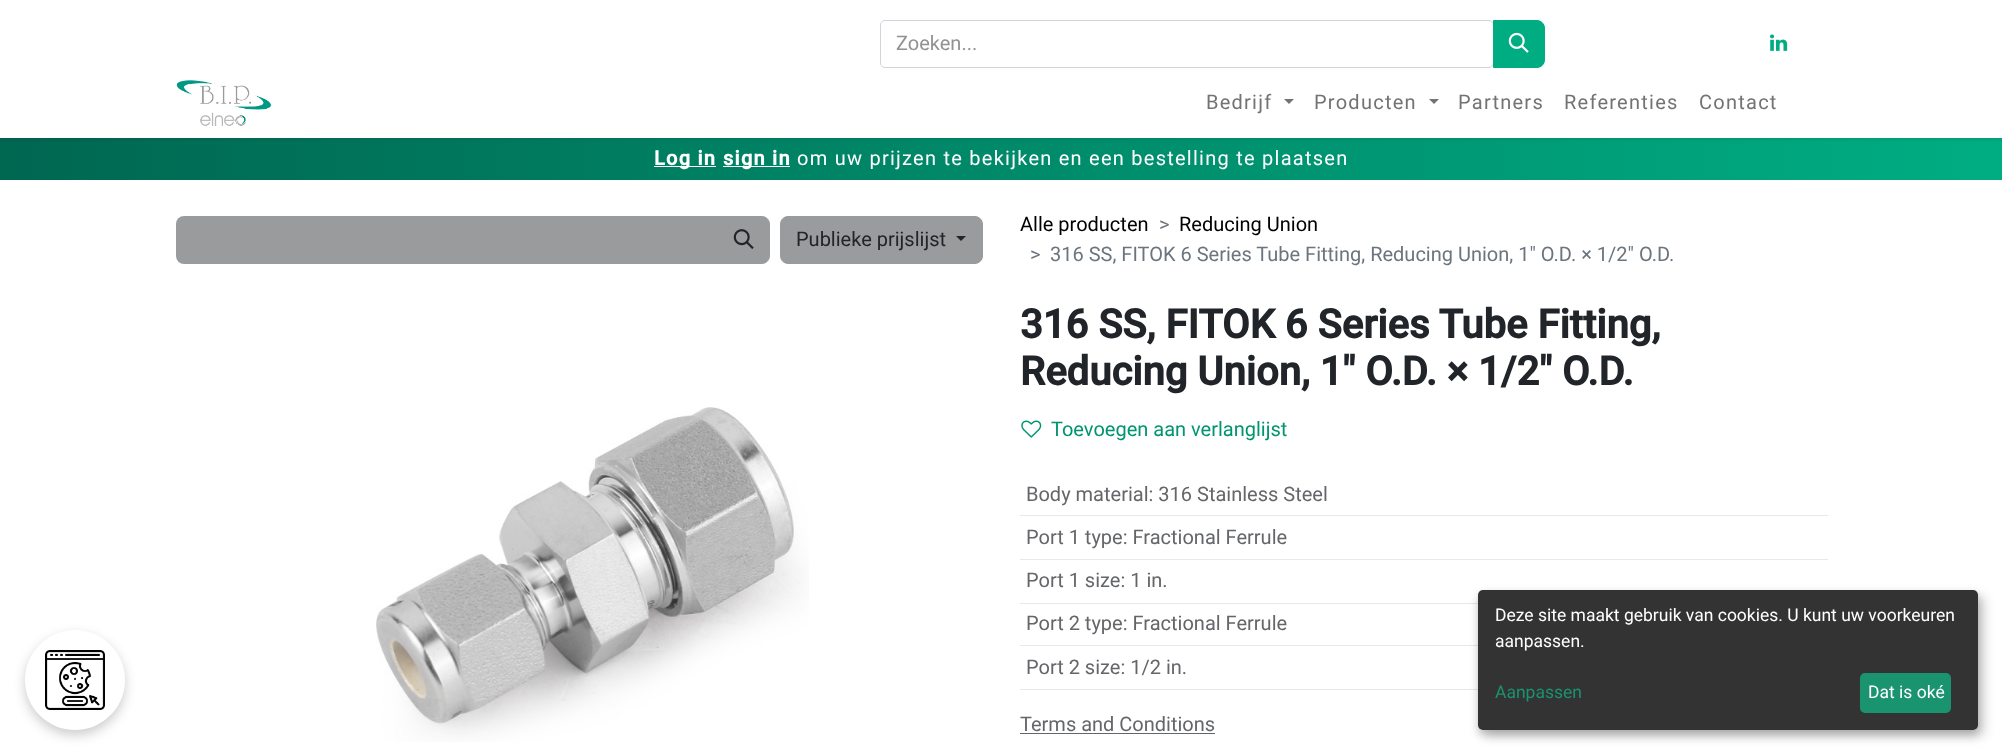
<!DOCTYPE html>
<meta charset="utf-8">
<style>body { margin: 0 } canvas { display: block }</style>
<canvas id="canvas" width="2002" height="754"></canvas>
<script type="module">
  const canvas = document.getElementById("canvas");
  const g = canvas.getContext("2d");
  g.miterLimit = 4;
  g.fontKerning = "normal";
  function drawText(s, x, y, [font, color]) {
    g.font = font;
    g.fillStyle = color;
    g.fillText(s, x, y);
  }
  function fillBox(x, y, w, h, color) {
    g.fillStyle = color;
    g.fillRect(x, y, w, h);
  }
  function fillRounded(x, y, w, h, r, color) {
    g.fillStyle = color;
    g.beginPath();
    g.roundRect(x, y, w, h, r);
    g.fill();
  }
  async function drawPicture(src, x, y, w, h) {
    const img = new Image();
    img.src = src;
    await img.decode();
    g.drawImage(img, x, y, w, h);
  }
  let gradient;

  const s1 = ["20px Roboto", "#909294"];
  const s2 = ["20px Roboto", "#737373"];
  const s3 = ["bold 20px Roboto", "#FFFFFF"];
  const s4 = ["20px Roboto", "#FFFFFF"];
  const s5 = ["20px Roboto", "#212529"];
  const s6 = ["20px Roboto", "#000000"];
  const s7 = ["20px Roboto", "#6C757D"];
  const s8 = ["bold 40px Roboto", "#212529"];
  const s9 = ["20px Roboto", "#009470"];
  const s10 = ["20px Roboto", "#646669"];
  const s11 = ["17.5px Roboto", "#FFFFFF"];
  const s12 = ["17.5px Roboto", "#1A936F"];

  fillBox(0, 0, 2002, 754, "#FFFFFF");
  gradient = g.createLinearGradient(0, 159, 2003, 159);
  gradient.addColorStop(0, "#006751");
  gradient.addColorStop(1, "#00AD83");
  g.fillStyle = gradient;
  g.fillRect(0, 138, 2002, 42);
  g.fillStyle = "rgba(0, 0, 0, 0.1)";
  g.filter = "blur(2px)";
  g.beginPath();
  g.rect(0, 1, 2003, 138);
  g.fill();
  g.filter = "none";
  fillBox(0, 0, 2002, 138, "#FFFFFF");
  g.beginPath();
  g.roundRect(880.5, 20.5, 613, 47, 4.5);
  g.strokeStyle = "#CED4DA";
  g.stroke();
  drawText("Zoeken...", 896, 50, s1);
  g.fillStyle = "#00AD83";
  g.beginPath();
  g.roundRect(1493.5, 20.5, 51, 47, [0, 7.5, 7.5, 0]);
  g.fill();
  g.strokeStyle = "#00AD83";
  g.stroke();
  await drawPicture("pic1.png", 1508, 32, 21, 21);
  await drawPicture("pic2.png", 1770, 34, 18, 17);
  await drawPicture("pic3.png", 176, 80, 96, 46);
  g.letterSpacing = "1.25px";
  drawText("Bedrijf", 1206, 109, s2);
  g.beginPath();
  g.moveTo(1284, 99);
  g.lineTo(1294, 99);
  g.lineTo(1289, 104);
  g.closePath();
  g.fill();
  drawText("Producten", 1314, 109, s2);
  g.beginPath();
  g.moveTo(1429, 99);
  g.lineTo(1439, 99);
  g.lineTo(1434, 104);
  g.closePath();
  g.fill();
  drawText("Partners", 1458, 109, s2);
  drawText("Referenties", 1564, 109, s2);
  drawText("Contact", 1699, 109, s2);
  fillBox(654, 166, 62, 1, "#FFFFFF");
  drawText("Log in", 654, 165, s3);
  fillBox(723, 166, 67, 1, "#FFFFFF");
  drawText("sign in", 723, 165, s3);
  drawText("om uw prijzen te bekijken en een bestelling te plaatsen", 797, 165, s4);
  g.fillStyle = "#9A9B9C";
  g.beginPath();
  g.roundRect(176, 216, 543, 48, [8, 0, 0, 8]);
  g.fill();
  g.beginPath();
  g.roundRect(718.5, 216.5, 51, 47, [0, 7.5, 7.5, 0]);
  g.fill();
  g.strokeStyle = "#9A9B9C";
  g.stroke();
  await drawPicture("pic4.png", 733, 229, 21, 20);
  g.beginPath();
  g.roundRect(780.5, 216.5, 202, 47, 7.5);
  g.fill();
  g.stroke();
  g.letterSpacing = "0px";
  drawText("Publieke prijslijst", 796, 246, s5);
  g.beginPath();
  g.moveTo(956, 236);
  g.lineTo(966, 236);
  g.lineTo(961, 241);
  g.closePath();
  g.fill();
  drawText("Alle producten", 1020, 231, s6);
  drawText(">", 1159, 231, s7);
  drawText("Reducing Union", 1179, 231, s6);
  drawText(">", 1030, 261, s7);
  drawText("316 SS, FITOK 6 Series Tube Fitting, Reducing Union, 1\" O.D. × 1/2\" O.D.", 1050, 261, s7);
  await drawPicture("pic5.png", 376, 407, 433, 335);
  drawText("316 SS, FITOK 6 Series Tube Fitting,", 1020, 338, s8);
  drawText("Reducing Union, 1\" O.D. × 1/2\" O.D.", 1020, 385, s8);
  await drawPicture("pic6.png", 1021, 420, 21, 18);
  drawText("Toevoegen aan verlanglijst", 1051, 436, s9);
  fillBox(1020, 515, 808, 1, "#E8E8E8");
  drawText("Body material: 316 Stainless Steel", 1026, 501, s10);
  fillBox(1020, 559, 808, 1, "#E8E8E8");
  drawText("Port 1 type: Fractional Ferrule", 1026, 544, s10);
  fillBox(1020, 603, 458, 1, "#E8E8E8");
  drawText("Port 1 size: 1 in.", 1026, 587, s10);
  fillBox(1020, 645, 458, 1, "#E8E8E8");
  drawText("Port 2 type: Fractional Ferrule", 1026, 630, s10);
  fillBox(1020, 689, 458, 1, "#E8E8E8");
  drawText("Port 2 size: 1/2 in.", 1026, 674, s10);
  drawText("Terms and Conditions", 1020, 731, s10);
  fillBox(1020, 733, 195, 1, "#646669");
  g.fillStyle = "rgba(0, 0, 0, 0.2)";
  g.filter = "blur(6px)";
  g.beginPath();
  g.roundRect(25, 635, 100, 100, 50);
  g.fill();
  g.filter = "none";
  g.fillStyle = "#FFFFFF";
  g.beginPath();
  g.arc(75, 680, 50, 0, Math.PI * 2);
  g.fill();
  await drawPicture("pic7.png", 45, 650, 60, 60);
  g.fillStyle = "rgba(0, 0, 0, 0.19)";
  g.filter = "blur(6px)";
  g.beginPath();
  g.roundRect(1484, 596, 500, 140, 5);
  g.fill();
  g.filter = "none";
  g.fillStyle = "rgba(0, 0, 0, 0.2)";
  g.filter = "blur(4px)";
  g.beginPath();
  g.roundRect(1478, 595, 500, 140, 5);
  g.fill();
  g.filter = "none";
  fillRounded(1478, 590, 500, 140, 5, "#333333");
  drawText("Deze site maakt gebruik van cookies. U kunt uw voorkeuren", 1495, 621, s11);
  drawText("aanpassen.", 1495, 647, s11);
  drawText("Aanpassen", 1495, 698, s12);
  fillRounded(1860, 673, 91, 40, 5, "#1A936F");
  drawText("Dat is oké", 1868, 698, s11);
</script>
